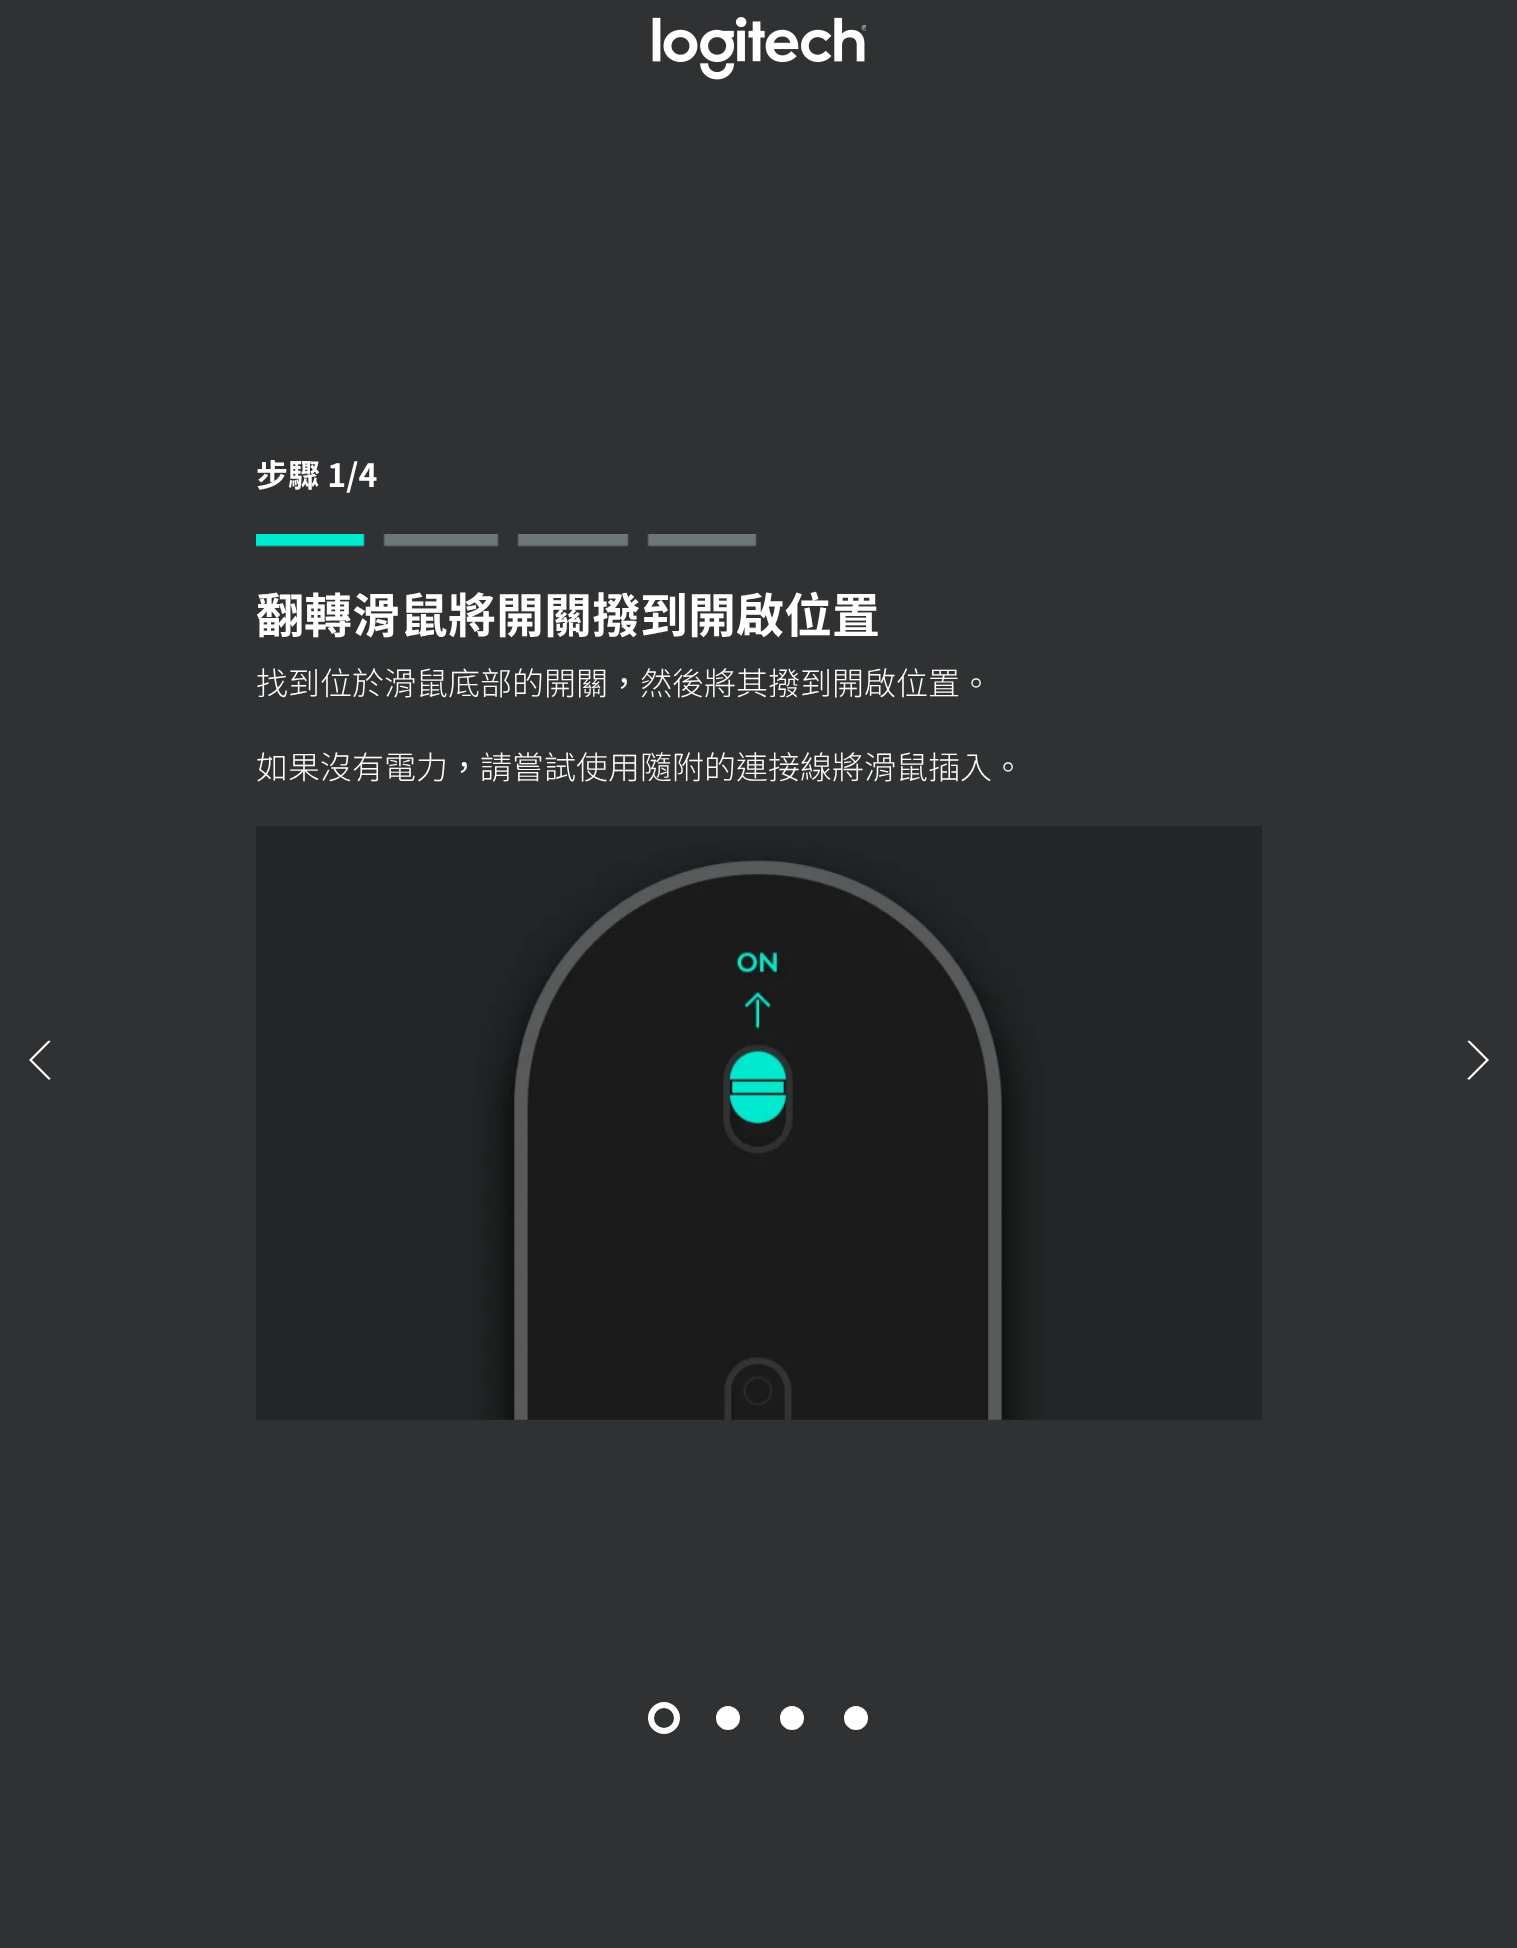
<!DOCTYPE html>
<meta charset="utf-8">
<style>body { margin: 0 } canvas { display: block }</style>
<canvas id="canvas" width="1517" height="1948"></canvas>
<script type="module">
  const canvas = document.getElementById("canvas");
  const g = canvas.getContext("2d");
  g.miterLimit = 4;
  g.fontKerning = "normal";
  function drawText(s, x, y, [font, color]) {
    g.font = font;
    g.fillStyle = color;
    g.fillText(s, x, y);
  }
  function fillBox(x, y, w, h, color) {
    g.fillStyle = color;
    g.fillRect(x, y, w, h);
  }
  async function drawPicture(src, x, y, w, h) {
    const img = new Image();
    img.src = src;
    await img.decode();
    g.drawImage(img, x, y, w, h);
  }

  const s1 = ["bold 32px Noto Sans TC", "#FFFFFF"];
  const s2 = ["bold 48px Noto Sans TC", "#FFFFFF"];
  const s3 = ["300 32px Noto Sans TC", "#FFFFFF"];
  const s4 = ["32px Noto Sans CJK TC", "#FFFFFF"];

  fillBox(0, 0, 1517, 1948, "#2F3132");
  await drawPicture("pic1.png", 652, 17, 214, 63);
  drawText("步驟 1/4", 256, 487, s1);
  await drawPicture("pic2.png", 256, 534, 501, 13);
  drawText("翻轉滑鼠將開關撥到開啟位置", 256, 633, s2);
  drawText("找到位於滑鼠底部的開關", 256, 695, s3);
  drawText("，", 608, 695, s4);
  drawText("然後將其撥到開啟位置。", 640, 695, s3);
  drawText("如果沒有電力", 256, 779, s3);
  drawText("，", 448, 779, s4);
  drawText("請嘗試使用隨附的連接線將滑鼠插入。", 480, 779, s3);
  await drawPicture("pic3.png", 256, 826, 1006, 594);
  g.beginPath();
  g.arc(664, 1718, 13, 0, Math.PI * 2);
  g.strokeStyle = "#FFFFFF";
  g.lineWidth = 6;
  g.stroke();
  g.beginPath();
  g.arc(728, 1718, 9, 0, Math.PI * 2);
  g.fill();
  g.stroke();
  g.beginPath();
  g.arc(792, 1718, 9, 0, Math.PI * 2);
  g.fill();
  g.stroke();
  g.beginPath();
  g.arc(856, 1718, 9, 0, Math.PI * 2);
  g.fill();
  g.stroke();
  g.beginPath();
  g.moveTo(50, 1079);
  g.lineTo(51, 1079);
  g.lineTo(32, 1060);
  g.lineTo(50, 1042);
  g.bezierCurveTo(50, 1041, 51, 1041, 50, 1041);
  g.bezierCurveTo(49, 1039, 46, 1043, 45, 1044);
  g.lineTo(29, 1060);
  g.lineTo(49, 1080);
  g.closePath();
  g.fill();
  g.beginPath();
  g.moveTo(1468, 1079);
  g.lineTo(1467, 1079);
  g.lineTo(1486, 1060);
  g.lineTo(1468, 1042);
  g.bezierCurveTo(1468, 1041, 1467, 1041, 1468, 1041);
  g.bezierCurveTo(1469, 1039, 1472, 1043, 1473, 1044);
  g.lineTo(1489, 1060);
  g.lineTo(1469, 1080);
  g.closePath();
  g.fill();
</script>
